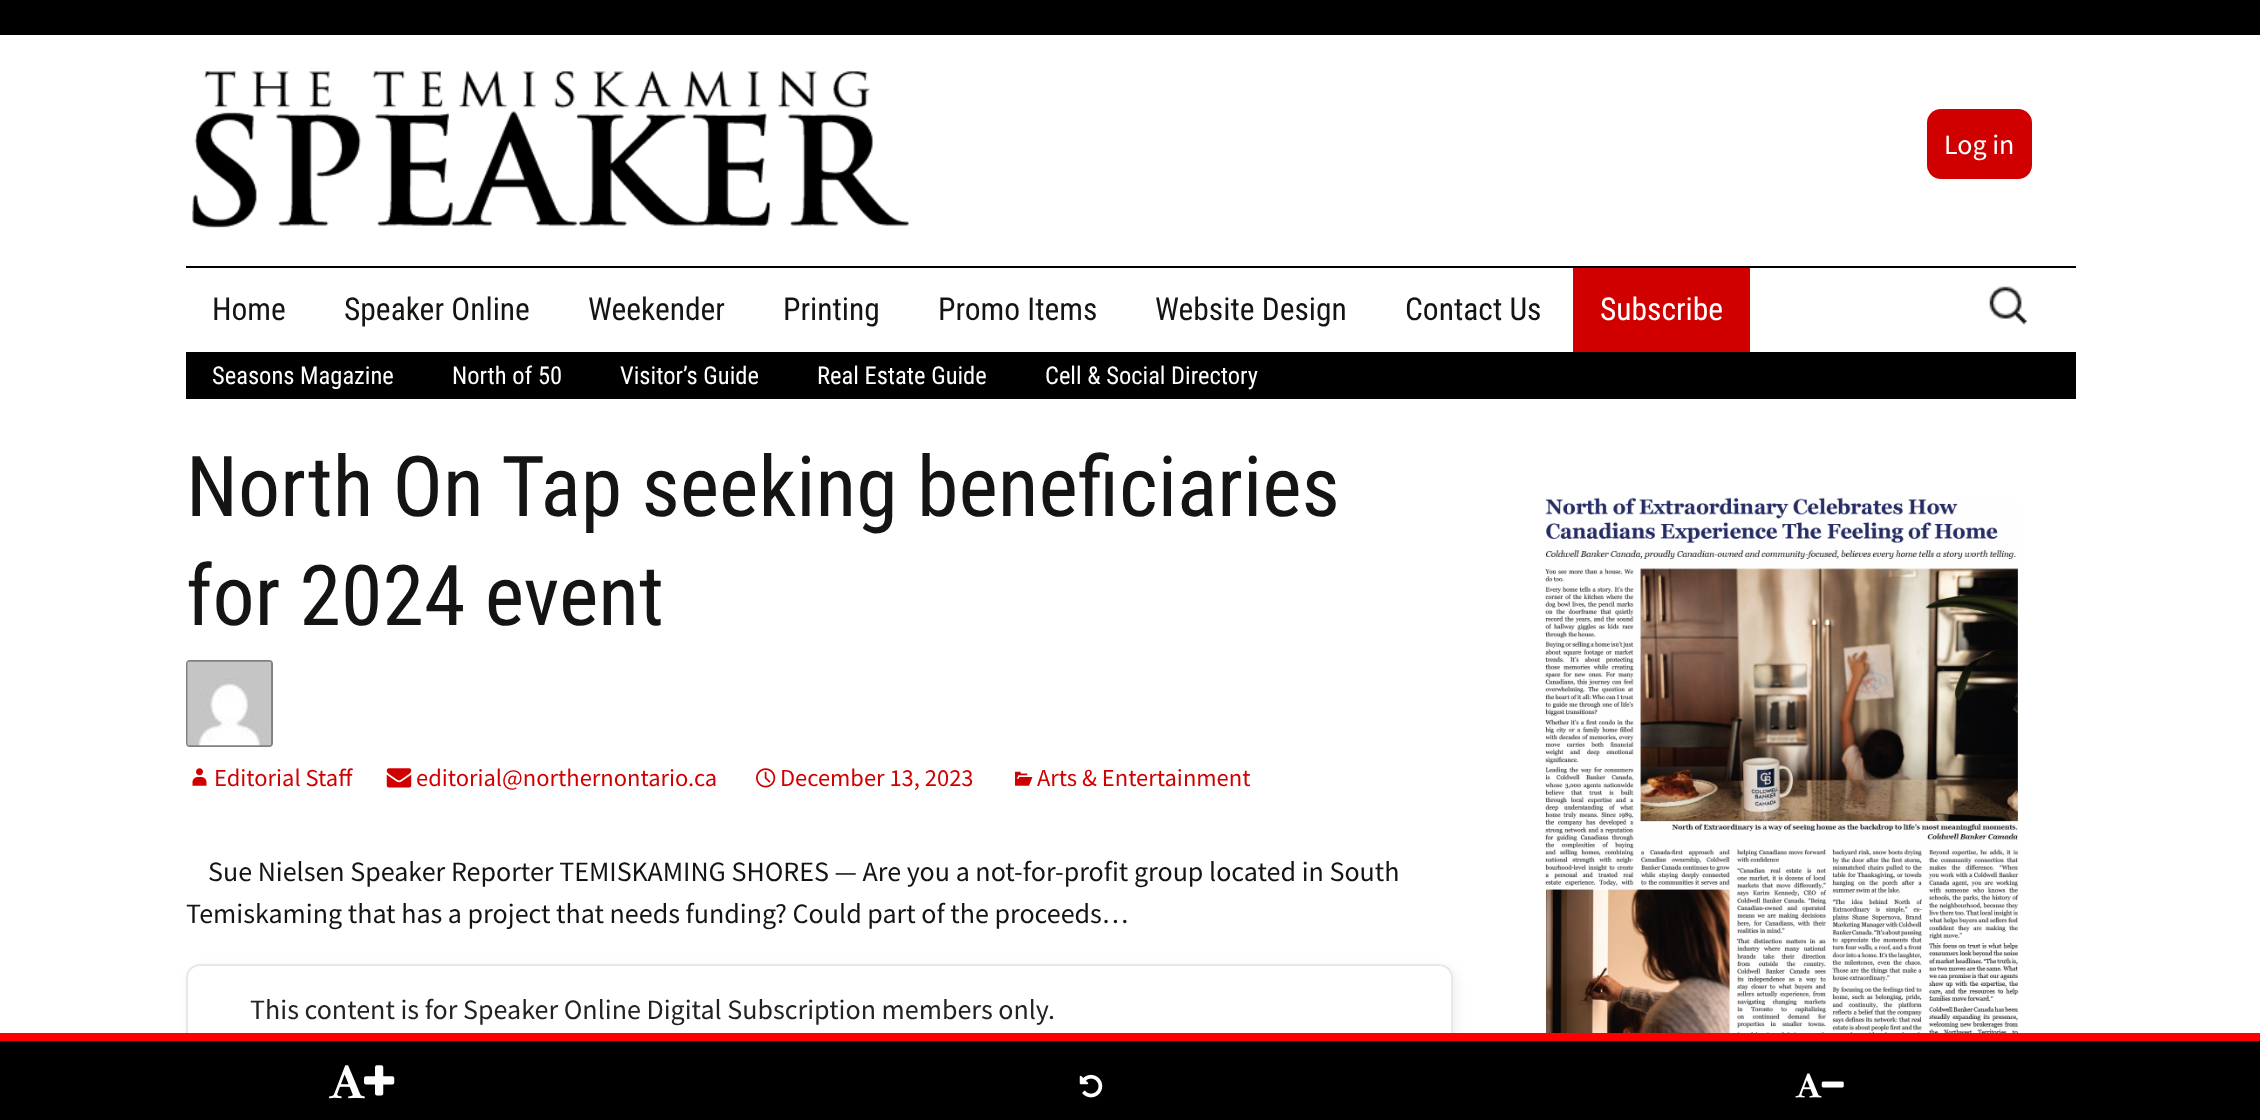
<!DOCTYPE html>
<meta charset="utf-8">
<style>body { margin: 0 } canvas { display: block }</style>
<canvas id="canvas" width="2260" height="1120"></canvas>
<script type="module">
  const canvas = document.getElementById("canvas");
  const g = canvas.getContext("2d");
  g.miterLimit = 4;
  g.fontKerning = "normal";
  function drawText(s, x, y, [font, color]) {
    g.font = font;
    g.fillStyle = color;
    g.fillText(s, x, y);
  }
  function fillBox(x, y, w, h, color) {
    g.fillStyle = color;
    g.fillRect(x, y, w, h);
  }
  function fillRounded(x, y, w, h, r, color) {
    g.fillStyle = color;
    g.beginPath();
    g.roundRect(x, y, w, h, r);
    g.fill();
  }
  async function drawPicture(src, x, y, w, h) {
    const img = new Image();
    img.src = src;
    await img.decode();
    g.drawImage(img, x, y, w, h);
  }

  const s1 = ["28px Source Sans Pro", "#FFFFFF"];
  const s2 = ["31.5px Roboto Condensed", "#141412"];
  const s3 = ["31.5px Roboto Condensed", "#FFFFFF"];
  const s4 = ["24.5px Roboto Condensed", "#FFFFFF"];
  const s5 = ["84px Roboto Condensed", "#141412"];
  const s6 = ["24.5px Source Sans Pro", "#D10000"];
  const s7 = ["28px Source Sans Pro", "#141412"];
  const s8 = ["28px Source Sans Pro", "#222222"];

  fillBox(0, 0, 2260, 1120, "#FFFFFF");
  fillBox(0, 0, 2260, 35, "#000000");
  await drawPicture("pic1.png", 192, 71, 717, 157);
  fillRounded(1927, 109, 105, 70, 14, "#D10000");
  drawText("Log in", 1944, 154, s1);
  fillBox(186, 266, 1890, 2, "#000000");
  fillBox(186, 352, 1890, 47, "#000000");
  drawText("Home", 212, 320, s2);
  drawText("Speaker Online", 344, 320, s2);
  drawText("Weekender", 588, 320, s2);
  drawText("Printing", 783, 320, s2);
  drawText("Promo Items", 938, 320, s2);
  drawText("Website Design", 1155, 320, s2);
  drawText("Contact Us", 1405, 320, s2);
  fillBox(1573, 268, 177, 84, "#D10000");
  drawText("Subscribe", 1600, 320, s3);
  await drawPicture("pic2.png", 1989, 286, 38, 39);
  drawText("Seasons Magazine", 212, 384, s4);
  drawText("North of 50", 452, 384, s4);
  drawText("Visitor’s Guide", 620, 384, s4);
  drawText("Real Estate Guide", 817, 384, s4);
  drawText("Cell & Social Directory", 1045, 384, s4);
  drawText("North On Tap seeking beneficiaries", 186, 516, s5);
  drawText("for 2024 event", 186, 625, s5);
  g.beginPath();
  g.roundRect(187, 661, 85, 85, 3);
  g.strokeStyle = "#808080";
  g.lineWidth = 2;
  g.stroke();
  await drawPicture("pic3.png", 187, 661, 85, 85);
  await drawPicture("pic4.png", 192, 768, 15, 18);
  drawText("Editorial Staff", 214, 786, s6);
  await drawPicture("pic5.png", 386, 768, 26, 20);
  drawText("editorial@northernontario.ca", 416, 786, s6);
  await drawPicture("pic6.png", 756, 768, 20, 20);
  drawText("December 13, 2023", 780, 786, s6);
  await drawPicture("pic7.png", 1015, 771, 18, 15);
  drawText("Arts & Entertainment", 1037, 786, s6);
  drawText("Sue Nielsen Speaker Reporter TEMISKAMING SHORES — Are you a not-for-profit group located in South", 208, 881, s7);
  drawText("Temiskaming that has a project that needs funding? Could part of the proceeds…", 186, 923, s7);
  g.fillStyle = "rgba(0, 0, 0, 0.07)";
  g.filter = "blur(6px)";
  g.beginPath();
  g.roundRect(189, 968, 1267, 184, 14);
  g.fill();
  g.filter = "none";
  g.fillStyle = "#FFFFFF";
  g.beginPath();
  g.roundRect(187, 965, 1265, 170, 13);
  g.fill();
  g.strokeStyle = "#E8E8E8";
  g.stroke();
  drawText("This content is for Speaker Online Digital Subscription members only.", 250, 1019, s8);
  await drawPicture("pic8.png", 1545, 497, 474, 536);
  fillBox(0, 1041, 2260, 79, "#000000");
  fillBox(0, 1033, 2260, 8, "#FF0000");
  await drawPicture("pic9.png", 329, 1065, 36, 34);
  await drawPicture("pic10.png", 364, 1065, 31, 31);
  await drawPicture("pic11.png", 1079, 1074, 24, 24);
  await drawPicture("pic12.png", 1795, 1073, 27, 25);
  await drawPicture("pic13.png", 1821, 1081, 23, 7);
</script>
